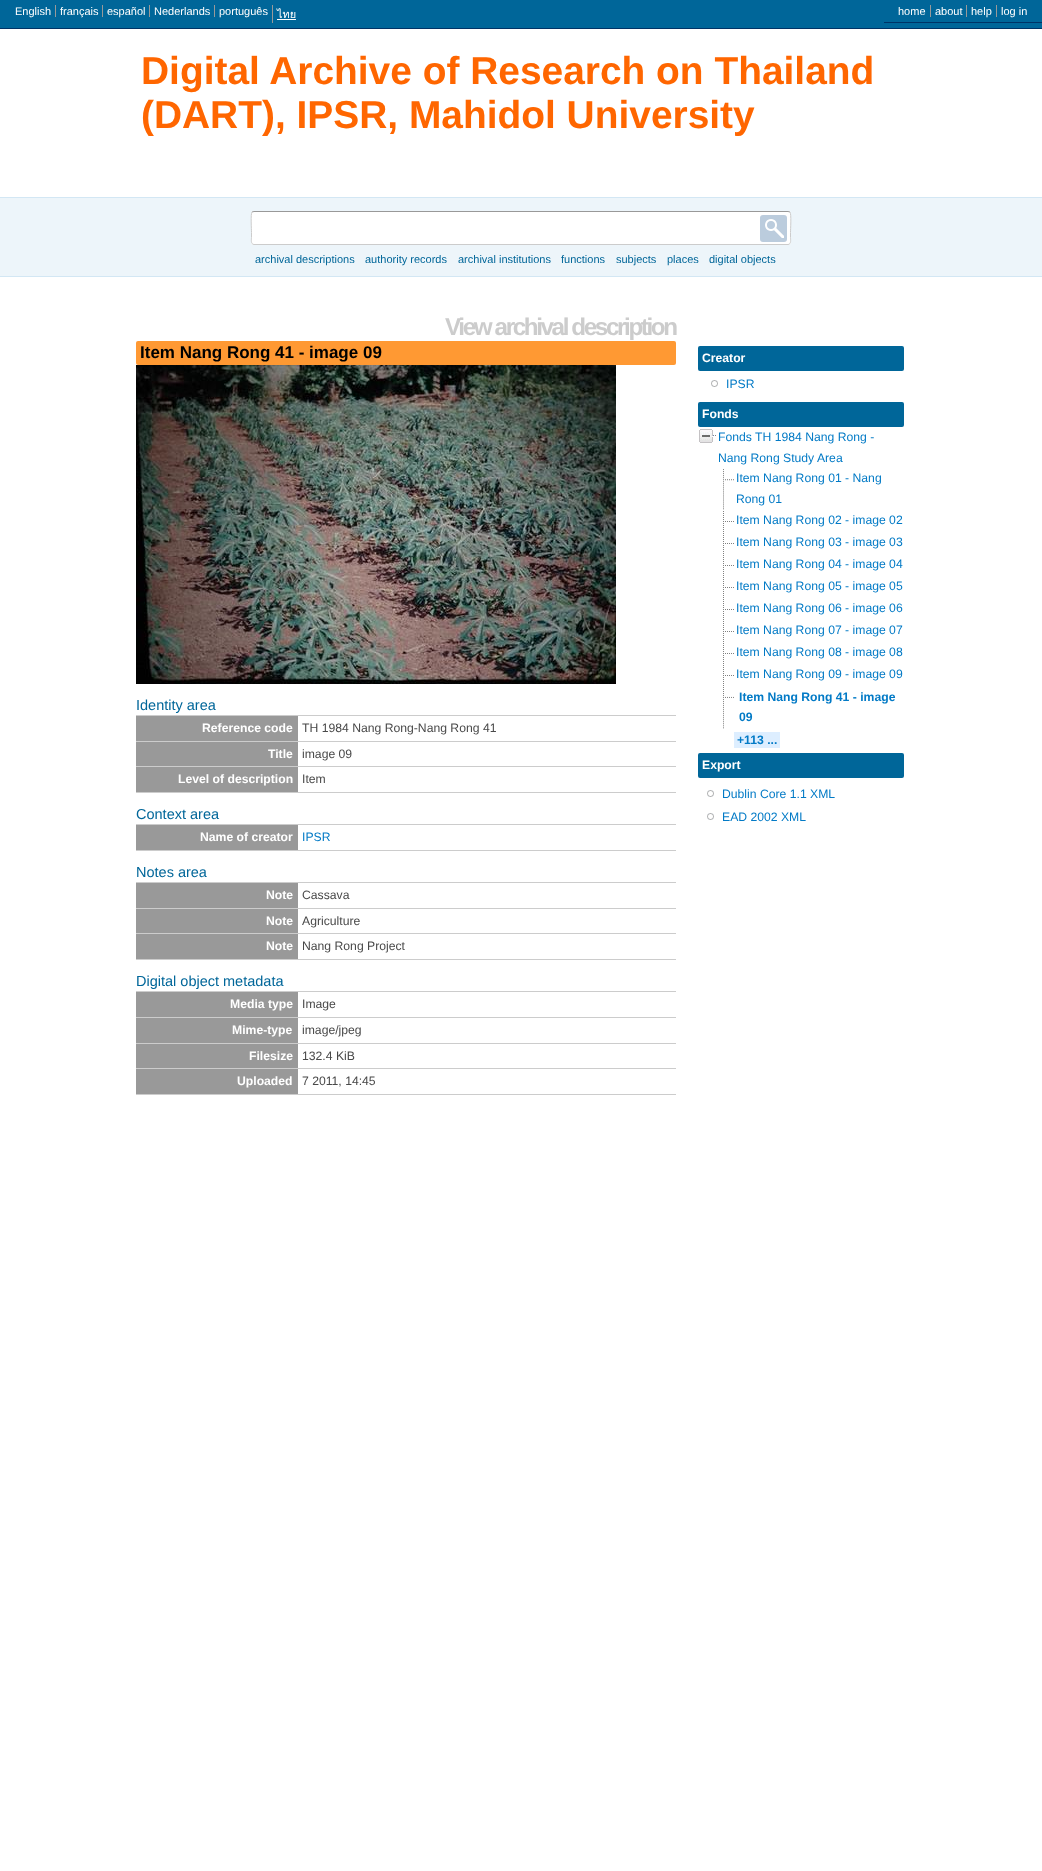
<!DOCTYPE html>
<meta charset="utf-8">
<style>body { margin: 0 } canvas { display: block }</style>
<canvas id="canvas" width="1042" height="1871"></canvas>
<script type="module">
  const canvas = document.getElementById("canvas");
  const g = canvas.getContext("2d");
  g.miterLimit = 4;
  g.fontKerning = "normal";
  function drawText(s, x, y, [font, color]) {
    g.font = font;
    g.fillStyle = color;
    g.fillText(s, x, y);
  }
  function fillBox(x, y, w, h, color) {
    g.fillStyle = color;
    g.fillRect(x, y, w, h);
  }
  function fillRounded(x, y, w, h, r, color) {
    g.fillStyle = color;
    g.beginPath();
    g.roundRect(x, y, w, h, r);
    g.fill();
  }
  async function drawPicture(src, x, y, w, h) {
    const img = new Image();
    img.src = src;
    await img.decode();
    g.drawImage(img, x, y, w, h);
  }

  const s1 = ["11px Liberation Sans", "#FFFFFF"];
  const s2 = ["11px Loma", "#FFFFFF"];
  const s3 = ["bold 38.9px Liberation Sans", "#FF6600"];
  const s4 = ["11px Liberation Sans", "#006699"];
  const s5 = ["bold 24.25px Liberation Sans", "#CCCCCC"];
  const s6 = ["bold 17px Liberation Sans", "#000000"];
  const s7 = ["14.5px Liberation Sans", "#006699"];
  const s8 = ["bold 12.2px Liberation Sans", "#FFFFFF"];
  const s9 = ["12.2px Liberation Sans", "#494949"];
  const s10 = ["12.2px Liberation Sans", "#027AC6"];
  const s11 = ["bold 12.2px Liberation Sans", "#027AC6"];

  fillBox(0, 0, 1042, 1871, "#FFFFFF");
  fillBox(0, 0, 1042, 28, "#006699");
  fillBox(0, 28, 1042, 1, "#003366");
  drawText("English", 15, 15, s1);
  fillBox(55, 5, 1, 12, "#999999");
  drawText("français", 60, 15, s1);
  fillBox(102, 5, 1, 12, "#999999");
  drawText("español", 107, 15, s1);
  fillBox(149, 5, 1, 12, "#999999");
  drawText("Nederlands", 154, 15, s1);
  fillBox(214, 5, 1, 12, "#999999");
  drawText("português", 219, 15, s1);
  fillBox(272, 5, 1, 18, "#999999");
  drawText("ไทย", 277, 18, s2);
  fillBox(277, 19, 19, 1, "#FFFFFF");
  fillBox(884, 22, 158, 1, "#003366");
  drawText("home", 898, 15, s1);
  fillBox(930, 5, 1, 12, "#999999");
  drawText("about", 935, 15, s1);
  fillBox(966, 5, 1, 12, "#999999");
  drawText("help", 971, 15, s1);
  fillBox(996, 5, 1, 12, "#999999");
  drawText("log in", 1001, 15, s1);
  drawText("Digital Archive of Research on Thailand", 141, 84, s3);
  drawText("(DART), IPSR, Mahidol University", 141, 128, s3);
  fillBox(0, 198, 1042, 78, "#EDF5FA");
  fillBox(0, 197, 1042, 1, "#D3E7F4");
  fillRounded(251, 211, 540, 34, 3, "#FFFFFF");
  g.beginPath();
  g.moveTo(252, 212);
  g.lineTo(254, 211.5);
  g.lineTo(788, 211.5);
  g.lineTo(790, 212);
  g.strokeStyle = "#999999";
  g.stroke();
  g.beginPath();
  g.moveTo(790, 212);
  g.bezierCurveTo(791.5, 214, 790.5, 229.5, 790.5, 232.5);
  g.lineTo(790.5, 237.5);
  g.bezierCurveTo(790.5, 239, 791.5, 244.5, 788, 244.5);
  g.lineTo(254, 244.5);
  g.bezierCurveTo(250.5, 244.5, 251.5, 239, 251.5, 237.5);
  g.lineTo(251.5, 232.5);
  g.bezierCurveTo(251.5, 229.5, 250.5, 214, 252, 212);
  g.strokeStyle = "#CCCCCC";
  g.stroke();
  fillRounded(760, 215, 27, 27, 3, "#BBCCDD");
  await drawPicture("pic1.png", 765, 219, 19, 19);
  fillBox(0, 276, 1042, 1, "#D3E7F4");
  drawText("archival descriptions", 255, 263, s4);
  drawText("authority records", 365, 263, s4);
  drawText("archival institutions", 458, 263, s4);
  drawText("functions", 561, 263, s4);
  drawText("subjects", 616, 263, s4);
  drawText("places", 667, 263, s4);
  drawText("digital objects", 709, 263, s4);
  g.letterSpacing = "-2.4px";
  drawText("View archival description", 445, 335, s5);
  fillRounded(136, 341, 540, 24, 2, "#FF9933");
  g.letterSpacing = "0px";
  drawText("Item Nang Rong 41 - image 09", 140, 358, s6);
  await drawPicture("pic2.png", 136, 365, 480, 319);
  drawText("Identity area", 136, 710, s7);
  fillBox(136, 715, 540, 1, "#CCCCCC");
  fillBox(136, 741, 540, 1, "#CCCCCC");
  fillBox(136, 716, 162, 25, "#999999");
  drawText("Reference code", 202, 732, s8);
  drawText("TH 1984 Nang Rong-Nang Rong 41", 302, 732, s9);
  fillBox(136, 766, 540, 1, "#CCCCCC");
  fillBox(136, 742, 162, 24, "#999999");
  drawText("Title", 268, 758, s8);
  drawText("image 09", 302, 758, s9);
  fillBox(136, 792, 540, 1, "#CCCCCC");
  fillBox(136, 767, 162, 25, "#999999");
  drawText("Level of description", 178, 783, s8);
  drawText("Item", 302, 783, s9);
  drawText("Context area", 136, 819, s7);
  fillBox(136, 824, 540, 1, "#CCCCCC");
  fillBox(136, 850, 540, 1, "#CCCCCC");
  fillBox(136, 825, 162, 25, "#999999");
  drawText("Name of creator", 200, 841, s8);
  drawText("IPSR", 302, 841, s10);
  drawText("Notes area", 136, 877, s7);
  fillBox(136, 882, 540, 1, "#CCCCCC");
  fillBox(136, 908, 540, 1, "#CCCCCC");
  fillBox(136, 883, 162, 25, "#999999");
  drawText("Note", 266, 899, s8);
  drawText("Cassava", 302, 899, s9);
  fillBox(136, 933, 540, 1, "#CCCCCC");
  fillBox(136, 909, 162, 24, "#999999");
  drawText("Note", 266, 925, s8);
  drawText("Agriculture", 302, 925, s9);
  fillBox(136, 959, 540, 1, "#CCCCCC");
  fillBox(136, 934, 162, 25, "#999999");
  drawText("Note", 266, 950, s8);
  drawText("Nang Rong Project", 302, 950, s9);
  drawText("Digital object metadata", 136, 986, s7);
  fillBox(136, 991, 540, 1, "#CCCCCC");
  fillBox(136, 1017, 540, 1, "#CCCCCC");
  fillBox(136, 992, 162, 25, "#999999");
  drawText("Media type", 230, 1008, s8);
  drawText("Image", 302, 1008, s9);
  fillBox(136, 1043, 540, 1, "#CCCCCC");
  fillBox(136, 1018, 162, 25, "#999999");
  drawText("Mime-type", 232, 1034, s8);
  drawText("image/jpeg", 302, 1034, s9);
  fillBox(136, 1068, 540, 1, "#CCCCCC");
  fillBox(136, 1044, 162, 24, "#999999");
  drawText("Filesize", 249, 1060, s8);
  drawText("132.4 KiB", 302, 1060, s9);
  fillBox(136, 1094, 540, 1, "#CCCCCC");
  fillBox(136, 1069, 162, 25, "#999999");
  drawText("Uploaded", 237, 1085, s8);
  drawText("7 2011, 14:45", 302, 1085, s9);
  fillRounded(698, 346, 206, 25, 2, "#006699");
  drawText("Creator", 702, 362, s8);
  await drawPicture("pic3.png", 711, 380, 7, 7);
  drawText("IPSR", 726, 388, s10);
  fillRounded(698, 402, 206, 25, 2, "#006699");
  drawText("Fonds", 702, 418, s8);
  await drawPicture("pic4.png", 699, 429, 17, 14);
  drawText("Fonds TH 1984 Nang Rong -", 718, 441, s10);
  drawText("Nang Rong Study Area", 718, 462, s10);
  await drawPicture("pic5.png", 723, 469, 11, 41);
  drawText("Item Nang Rong 01 - Nang", 736, 482, s10);
  drawText("Rong 01", 736, 503, s10);
  await drawPicture("pic6.png", 723, 511, 11, 21);
  drawText("Item Nang Rong 02 - image 02", 736, 524, s10);
  await drawPicture("pic6.png", 723, 533, 11, 21);
  drawText("Item Nang Rong 03 - image 03", 736, 546, s10);
  await drawPicture("pic6.png", 723, 555, 11, 21);
  drawText("Item Nang Rong 04 - image 04", 736, 568, s10);
  await drawPicture("pic6.png", 723, 577, 11, 21);
  drawText("Item Nang Rong 05 - image 05", 736, 590, s10);
  await drawPicture("pic6.png", 723, 599, 11, 21);
  drawText("Item Nang Rong 06 - image 06", 736, 612, s10);
  await drawPicture("pic6.png", 723, 621, 11, 21);
  drawText("Item Nang Rong 07 - image 07", 736, 634, s10);
  await drawPicture("pic6.png", 723, 643, 11, 21);
  drawText("Item Nang Rong 08 - image 08", 736, 656, s10);
  await drawPicture("pic6.png", 723, 665, 11, 21);
  drawText("Item Nang Rong 09 - image 09", 736, 678, s10);
  await drawPicture("pic7.png", 723, 687, 11, 42);
  drawText("Item Nang Rong 41 - image", 739, 701, s11);
  drawText("09", 739, 721, s11);
  fillBox(734, 732, 46, 16, "#DDEEFF");
  drawText("+113 ...", 737, 744, s11);
  fillRounded(698, 753, 206, 25, 2, "#006699");
  drawText("Export", 702, 769, s8);
  await drawPicture("pic3.png", 707, 790, 7, 7);
  drawText("Dublin Core 1.1 XML", 722, 798, s10);
  await drawPicture("pic3.png", 707, 813, 7, 7);
  drawText("EAD 2002 XML", 722, 821, s10);
</script>
